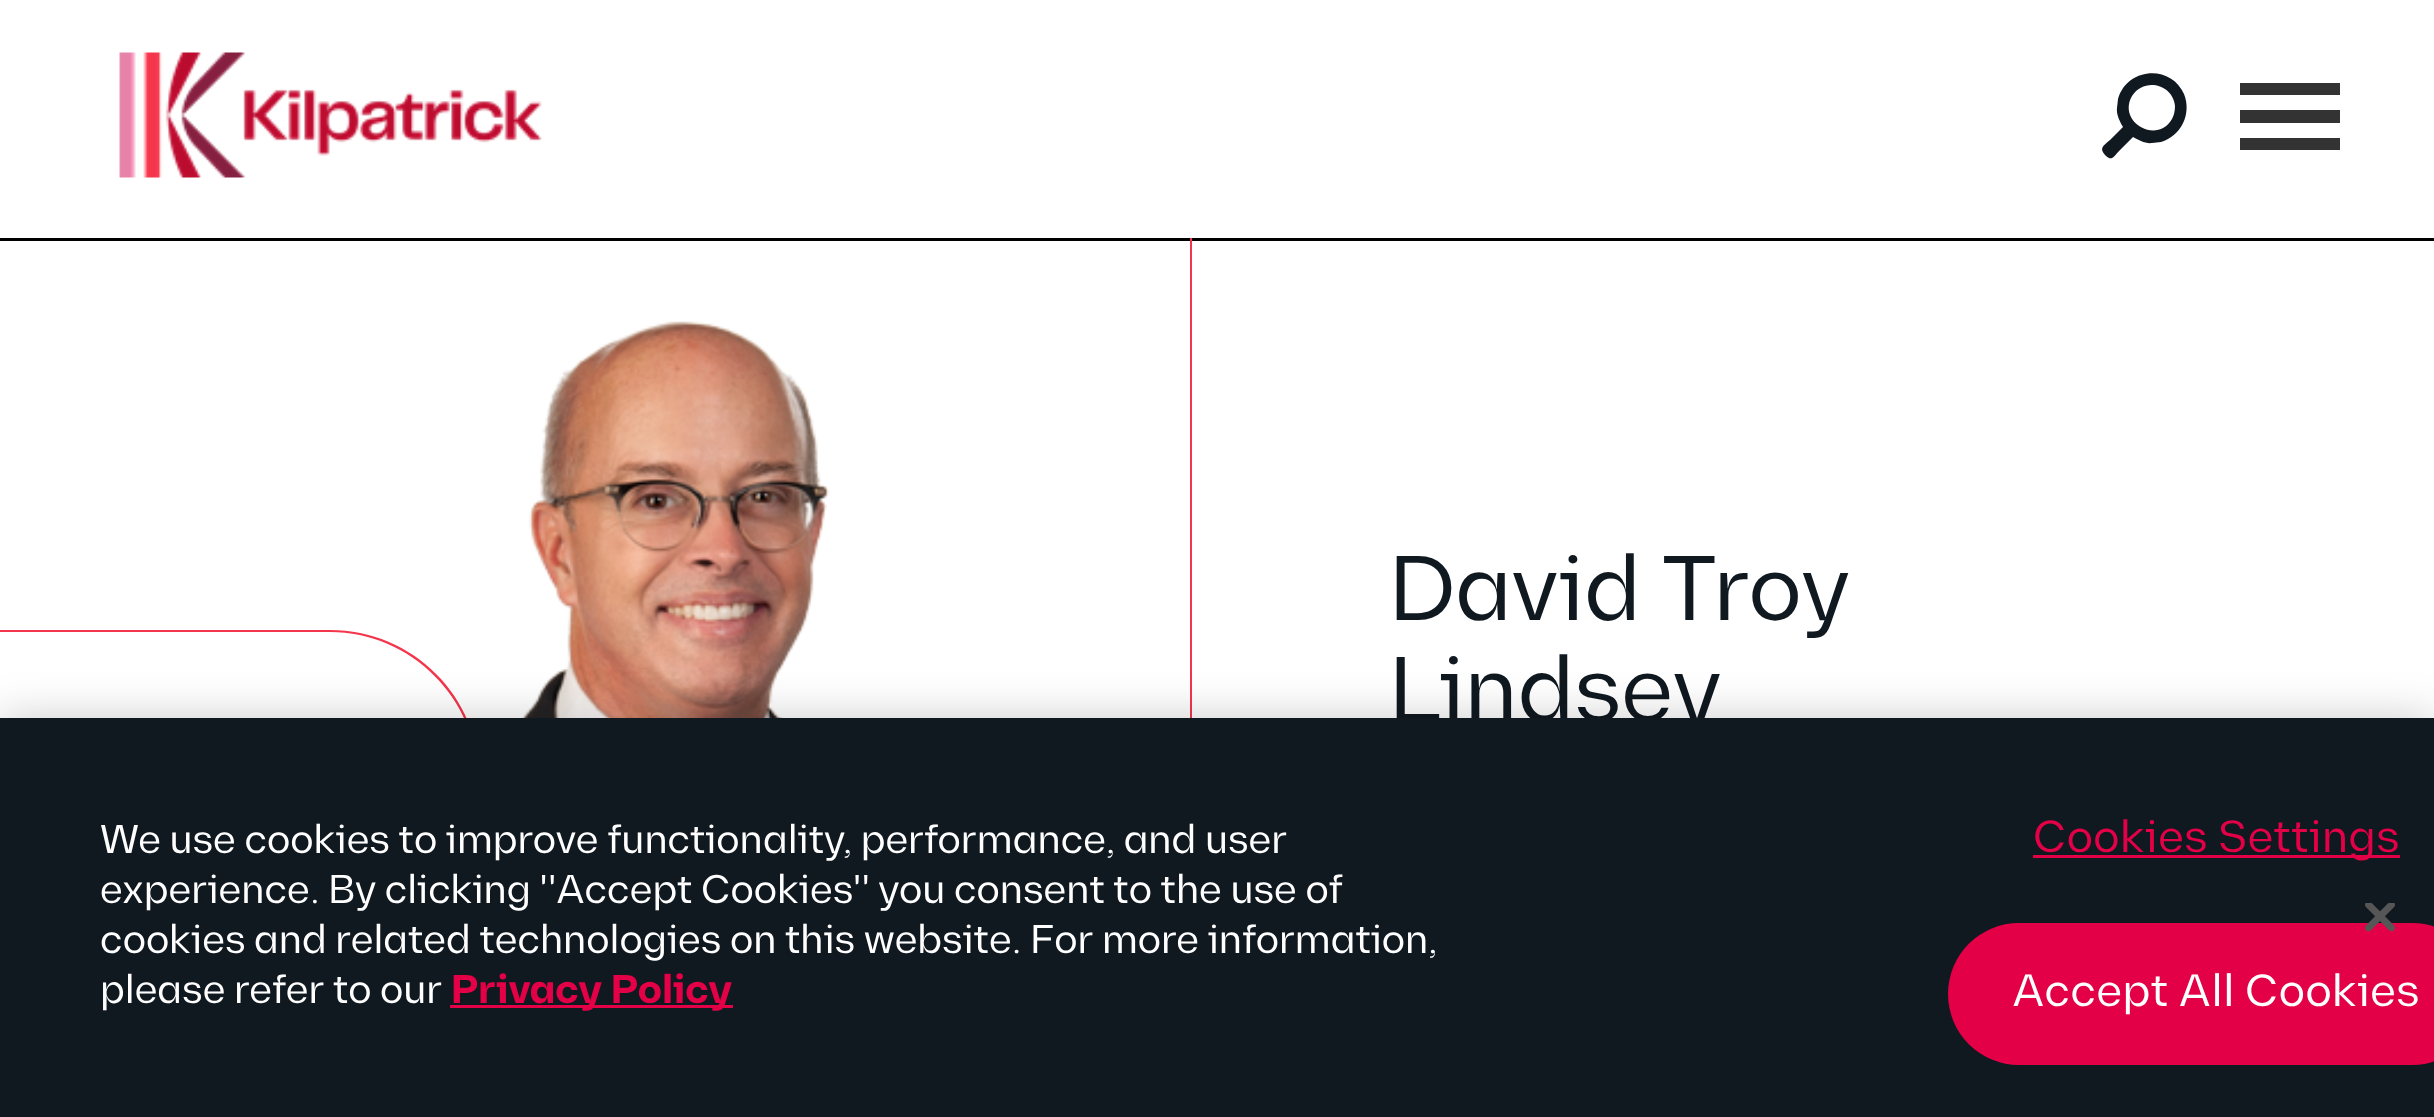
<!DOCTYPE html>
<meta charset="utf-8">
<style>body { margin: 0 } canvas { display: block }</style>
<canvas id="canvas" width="2434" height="1117"></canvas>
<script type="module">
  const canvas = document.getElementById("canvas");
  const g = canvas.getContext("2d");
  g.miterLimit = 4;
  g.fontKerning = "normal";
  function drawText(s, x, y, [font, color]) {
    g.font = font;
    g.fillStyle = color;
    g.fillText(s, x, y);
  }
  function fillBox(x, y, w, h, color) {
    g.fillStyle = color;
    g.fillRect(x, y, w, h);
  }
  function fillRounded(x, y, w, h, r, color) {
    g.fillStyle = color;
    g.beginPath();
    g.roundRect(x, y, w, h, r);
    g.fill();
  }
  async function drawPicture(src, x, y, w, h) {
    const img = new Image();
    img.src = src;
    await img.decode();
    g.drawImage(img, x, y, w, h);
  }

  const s1 = ["91.5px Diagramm", "#101820"];
  const s2 = ["40px Diagramm", "#FFFFFF"];
  const s3 = ["bold 40px Diagramm", "#E40046"];
  const s4 = ["45px Diagramm", "#E40046"];
  const s5 = ["45px Diagramm", "#FFFFFF"];

  fillBox(0, 0, 2434, 1117, "#FFFFFF");
  fillBox(0, 238, 2434, 3, "#000000");
  g.fillStyle = "#F4364C";
  g.beginPath();
  g.moveTo(1415, -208);
  g.lineTo(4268, -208);
  g.bezierCurveTo(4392, -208, 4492, -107, 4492, 18);
  g.lineTo(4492, 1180);
  g.bezierCurveTo(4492, 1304, 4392, 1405, 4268, 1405);
  g.lineTo(1415, 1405);
  g.bezierCurveTo(1291, 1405, 1190, 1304, 1190, 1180);
  g.lineTo(1190, 18);
  g.bezierCurveTo(1190, -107, 1291, -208, 1415, -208);
  g.closePath();
  g.moveTo(1415, -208);
  g.lineTo(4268, -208);
  g.bezierCurveTo(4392, -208, 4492, -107, 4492, 18);
  g.lineTo(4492, 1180);
  g.bezierCurveTo(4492, 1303, 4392, 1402, 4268, 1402);
  g.lineTo(1415, 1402);
  g.bezierCurveTo(1292, 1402, 1192, 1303, 1192, 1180);
  g.lineTo(1192, 18);
  g.bezierCurveTo(1192, -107, 1292, -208, 1415, -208);
  g.closePath();
  g.fill("evenodd");
  fillBox(1190, 0, 3, 238, "#FFFFFF");
  await drawPicture("pic1.png", 119, 52, 423, 126);
  g.fillStyle = "#101820";
  g.beginPath();
  g.moveTo(2184, 94);
  g.bezierCurveTo(2192, 114, 2181, 136, 2161, 142);
  g.lineTo(2152, 143);
  g.bezierCurveTo(2146, 144, 2138, 140, 2133, 137);
  g.lineTo(2120, 150);
  g.bezierCurveTo(2113, 157, 2112, 162, 2105, 155);
  g.bezierCurveTo(2099, 148, 2103, 146, 2110, 140);
  g.lineTo(2123, 127);
  g.bezierCurveTo(2120, 122, 2116, 114, 2117, 108);
  g.lineTo(2118, 99);
  g.bezierCurveTo(2127, 67, 2171, 64, 2184, 94);
  g.closePath();
  g.moveTo(2172, 119);
  g.bezierCurveTo(2174, 115, 2175, 111, 2175, 106);
  g.bezierCurveTo(2173, 84, 2144, 77, 2132, 96);
  g.bezierCurveTo(2117, 122, 2157, 145, 2172, 119);
  g.closePath();
  g.fill();
  fillBox(2240, 110, 100, 13, "#333333");
  fillBox(2240, 83, 100, 12, "#333333");
  fillBox(2240, 138, 100, 12, "#333333");
  await drawPicture("pic2.png", 521, 321, 309, 397);
  g.fillStyle = "#F4364C";
  g.beginPath();
  g.moveTo(-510, 630);
  g.lineTo(330, 630);
  g.bezierCurveTo(413, 630, 480, 697, 480, 780);
  g.lineTo(480, 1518);
  g.lineTo(-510, 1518);
  g.closePath();
  g.moveTo(-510, 632);
  g.lineTo(330, 632);
  g.bezierCurveTo(411, 632, 478, 699, 478, 780);
  g.lineTo(478, 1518);
  g.lineTo(-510, 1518);
  g.closePath();
  g.fill("evenodd");
  drawText("David Troy", 1389, 620, s1);
  drawText("Lindsey", 1389, 721, s1);
  g.fillStyle = "rgba(0, 0, 0, 0.2)";
  g.filter = "blur(22.5px)";
  g.beginPath();
  g.rect(0, 718, 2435, 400);
  g.fill();
  g.filter = "none";
  fillBox(0, 718, 2434, 399, "#101820");
  drawText("We use cookies to improve functionality, performance, and user", 100, 853, s2);
  drawText("experience. By clicking \"Accept Cookies\" you consent to the use of", 100, 903, s2);
  drawText("cookies and related technologies on this website. For more information,", 100, 953, s2);
  drawText("please refer to our", 100, 1003, s2);
  fillBox(450, 1005, 283, 3, "#E40046");
  drawText("Privacy Policy", 451, 1003, s3);
  fillBox(2033, 855, 367, 3, "#E40046");
  g.letterSpacing = "0.5px";
  drawText("Cookies Settings", 2033, 852, s4);
  fillRounded(1948, 923, 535, 142, 71, "#E40046");
  drawText("Accept All Cookies", 2012, 1006, s5);
  await drawPicture("pic3.png", 2365, 903, 30, 29);
</script>
